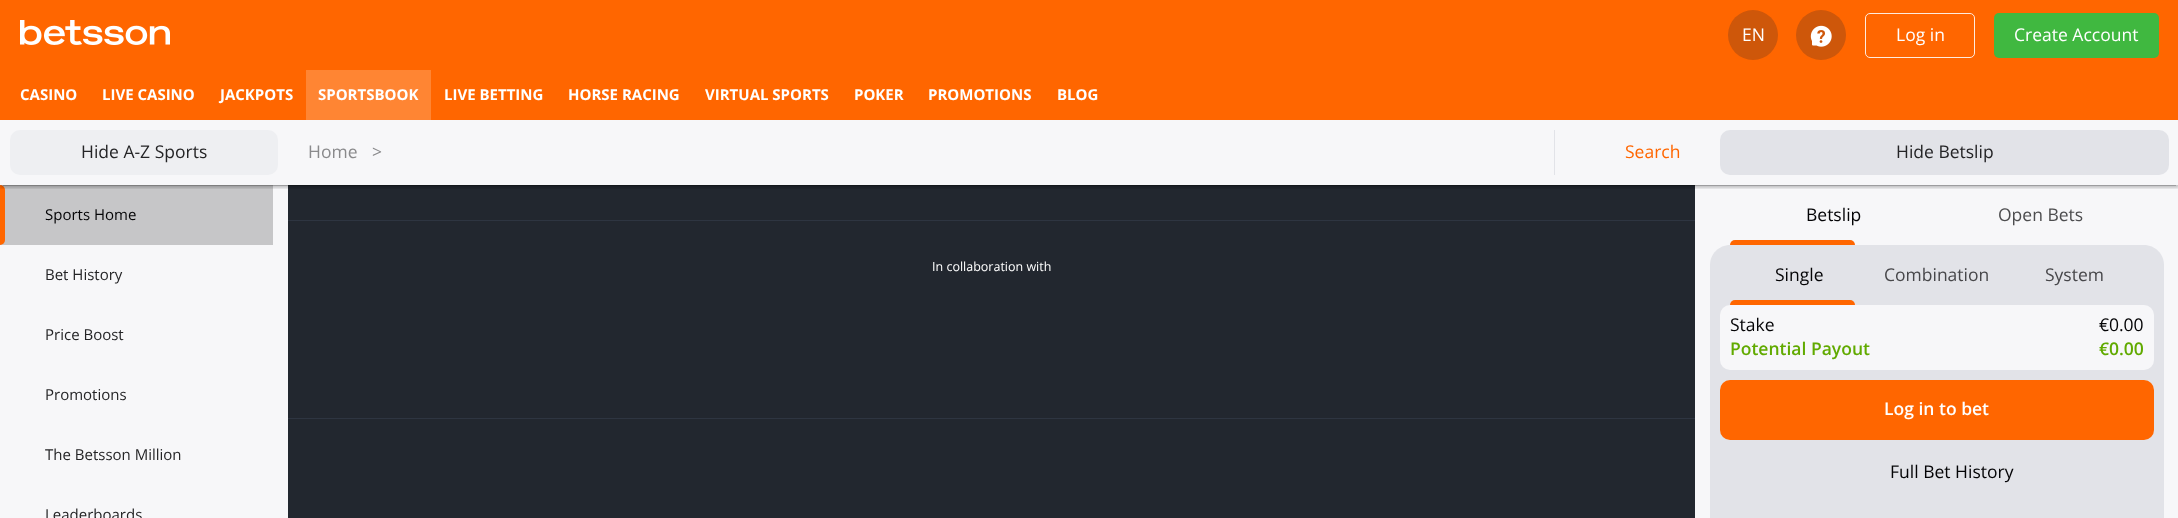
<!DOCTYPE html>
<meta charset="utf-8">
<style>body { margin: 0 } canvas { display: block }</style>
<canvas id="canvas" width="2178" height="518"></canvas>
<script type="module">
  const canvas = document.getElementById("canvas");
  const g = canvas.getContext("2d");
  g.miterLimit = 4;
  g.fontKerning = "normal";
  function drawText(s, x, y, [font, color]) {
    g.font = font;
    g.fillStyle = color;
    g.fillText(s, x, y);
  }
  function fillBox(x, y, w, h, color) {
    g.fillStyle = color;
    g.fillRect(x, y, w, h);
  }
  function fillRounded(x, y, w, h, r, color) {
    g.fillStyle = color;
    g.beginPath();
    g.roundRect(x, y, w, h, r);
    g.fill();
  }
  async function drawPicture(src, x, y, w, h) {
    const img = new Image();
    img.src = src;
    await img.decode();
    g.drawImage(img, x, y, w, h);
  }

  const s1 = ["17.5px Open Sans", "#FFFFFF"];
  const s2 = ["bold 15px Open Sans", "#FFFFFF"];
  const s3 = ["17.5px Open Sans", "#242426"];
  const s4 = ["17.5px Open Sans", "#8A8A8C"];
  const s5 = ["17.5px Open Sans", "#FF6600"];
  const s6 = ["15px Open Sans", "#040406"];
  const s7 = ["15px Open Sans", "#242426"];
  const s8 = ["12.5px Open Sans", "#FFFFFF"];
  const s9 = ["17.5px Open Sans", "#040406"];
  const s10 = ["17.5px Open Sans", "#4D4D4F"];
  const s11 = ["17.5px Open Sans", "#47474A"];
  const s12 = ["600 17.5px Open Sans", "#61AA00"];
  const s13 = ["600 17.5px Open Sans", "#FFFFFF"];

  fillBox(0, 0, 2178, 518, "#F7F7F9");
  fillBox(0, 185, 273, 60, "#C6C6C8");
  g.fillStyle = "#FF6600";
  g.beginPath();
  g.roundRect(0, 185, 5, 60, [0, 5, 5, 0]);
  g.fill();
  fillBox(288, 185, 1407, 333, "#22272F");
  g.save();
  g.beginPath();
  g.rect(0, 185, 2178, 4);
  g.clip();
  g.fillStyle = "rgba(0, 0, 0, 0.12)";
  g.filter = "blur(3px)";
  g.beginPath();
  g.rect(0, 121, 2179, 65);
  g.fill();
  g.filter = "none";
  g.fillStyle = "rgba(0, 0, 0, 0.14)";
  g.filter = "blur(1px)";
  g.beginPath();
  g.rect(0, 123, 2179, 65);
  g.fill();
  g.filter = "none";
  g.restore();
  fillBox(0, 0, 2178, 120, "#FF6600");
  await drawPicture("pic1.png", 20, 20, 150, 25);
  g.fillStyle = "#CE570A";
  g.beginPath();
  g.arc(1753, 35, 25, 0, Math.PI * 2);
  g.fill();
  drawText("EN", 1742, 41, s1);
  g.fillStyle = "#CE570A";
  g.beginPath();
  g.arc(1821, 35, 25, 0, Math.PI * 2);
  g.fill();
  await drawPicture("pic2.png", 1810, 25, 22, 22);
  g.beginPath();
  g.roundRect(1865.5, 13.5, 109, 44, 4.5);
  g.strokeStyle = "#FFEBDE";
  g.stroke();
  drawText("Log in", 1896, 41, s1);
  fillRounded(1994, 13, 165, 45, 5, "#40B840");
  drawText("Create Account", 2014, 41, s1);
  drawText("CASINO", 20, 100, s2);
  drawText("LIVE CASINO", 102, 100, s2);
  drawText("JACKPOTS", 220, 100, s2);
  fillBox(306, 70, 125, 50, "#FF8533");
  drawText("SPORTSBOOK", 318, 100, s2);
  drawText("LIVE BETTING", 444, 100, s2);
  drawText("HORSE RACING", 568, 100, s2);
  drawText("VIRTUAL SPORTS", 705, 100, s2);
  drawText("POKER", 854, 100, s2);
  drawText("PROMOTIONS", 928, 100, s2);
  drawText("BLOG", 1057, 100, s2);
  g.save();
  g.beginPath();
  g.rect(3, 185, 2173, 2);
  g.clip();
  g.fillStyle = "rgba(0, 0, 0, 0.2)";
  g.filter = "blur(0.5px)";
  g.beginPath();
  g.rect(3, 126, 2173, 60);
  g.fill();
  g.filter = "none";
  g.restore();
  fillRounded(10, 130, 268, 45, 10, "#EEEFF2");
  drawText("Hide A-Z Sports", 81, 158, s3);
  drawText("Home", 308, 158, s4);
  drawText(">", 372, 158, s4);
  fillBox(1554, 130, 1, 45, "#E2E3E8");
  drawText("Search", 1625, 158, s5);
  fillRounded(1720, 130, 449, 45, 10, "#E2E3E8");
  drawText("Hide Betslip", 1896, 158, s3);
  drawText("Sports Home", 45, 220, s6);
  drawText("Bet History", 45, 280, s7);
  drawText("Price Boost", 45, 340, s7);
  drawText("Promotions", 45, 400, s7);
  drawText("The Betsson Million", 45, 460, s7);
  drawText("Leaderboards", 45, 520, s7);
  fillBox(288, 220, 1407, 1, "#2E3541");
  fillBox(288, 418, 1407, 1, "#2E3541");
  drawText("In collaboration with", 932, 271, s8);
  drawText("Betslip", 1806, 221, s9);
  drawText("Open Bets", 1998, 221, s10);
  g.fillStyle = "#FF6600";
  g.beginPath();
  g.roundRect(1730, 240, 125, 5, [5, 5, 0, 0]);
  g.fill();
  g.fillStyle = "#E2E3E8";
  g.beginPath();
  g.moveTo(1730, 245);
  g.lineTo(2144, 245);
  g.bezierCurveTo(2155, 245, 2164, 254, 2164, 265);
  g.lineTo(2164, 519);
  g.lineTo(1710, 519);
  g.lineTo(1710, 265);
  g.bezierCurveTo(1710, 254, 1719, 245, 1730, 245);
  g.closePath();
  g.fill();
  drawText("Single", 1775, 281, s9);
  drawText("Combination", 1884, 281, s11);
  drawText("System", 2045, 281, s11);
  g.fillStyle = "#FF6600";
  g.beginPath();
  g.roundRect(1730, 300, 125, 5, [5, 5, 0, 0]);
  g.fill();
  fillRounded(1720, 305, 434, 65, 10, "#F7F7F9");
  drawText("Stake", 1730, 331, s9);
  drawText("€0.00", 2099, 331, s9);
  drawText("Potential Payout", 1730, 355, s12);
  drawText("€0.00", 2099, 355, s12);
  fillRounded(1720, 380, 434, 60, 10, "#FF6600");
  drawText("Log in to bet", 1884, 415, s13);
  drawText("Full Bet History", 1890, 478, s9);
</script>
